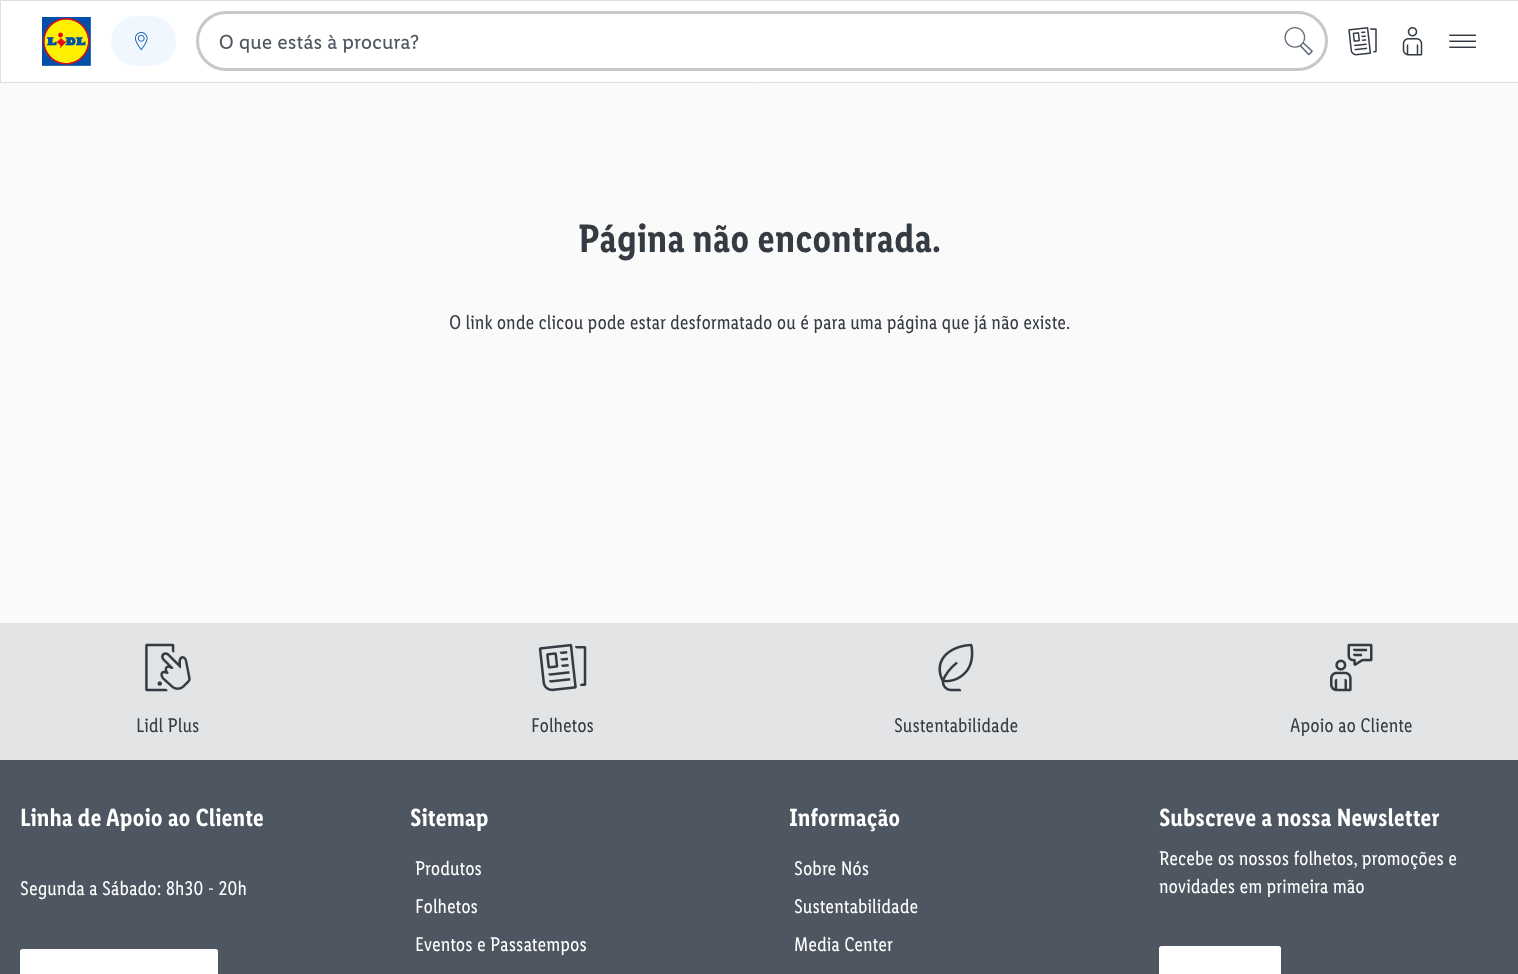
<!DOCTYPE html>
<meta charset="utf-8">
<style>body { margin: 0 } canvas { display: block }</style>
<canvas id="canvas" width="1518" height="974"></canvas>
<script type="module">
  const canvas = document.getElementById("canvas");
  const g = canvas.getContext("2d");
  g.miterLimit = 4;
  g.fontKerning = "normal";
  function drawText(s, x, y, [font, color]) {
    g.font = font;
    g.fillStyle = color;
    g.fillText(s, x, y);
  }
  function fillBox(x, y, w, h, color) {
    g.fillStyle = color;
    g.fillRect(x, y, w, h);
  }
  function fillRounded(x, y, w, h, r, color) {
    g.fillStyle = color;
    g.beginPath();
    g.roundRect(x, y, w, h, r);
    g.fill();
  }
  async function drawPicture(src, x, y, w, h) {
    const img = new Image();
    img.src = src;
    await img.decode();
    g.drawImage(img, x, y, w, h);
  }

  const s1 = ["600 40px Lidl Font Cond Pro", "#353B42"];
  const s2 = ["20px Lidl Font Cond Pro", "#353B42"];
  const s3 = ["600 25px Lidl Font Cond Pro", "#FFFFFF"];
  const s4 = ["20px Lidl Font Cond Pro", "#FFFFFF"];

  fillBox(0, 0, 1518, 974, "#FAFAFA");
  g.fillStyle = "#FFFFFF";
  g.beginPath();
  g.rect(0.5, 0.5, 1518, 82);
  g.fill();
  g.strokeStyle = "#DDE0E3";
  g.stroke();
  await drawPicture("pic1.png", 42, 17, 49, 49);
  fillRounded(111, 16, 65, 50, 25, "#F0F7FF");
  await drawPicture("pic2.png", 135, 32, 13, 19);
  g.beginPath();
  g.roundRect(197.5, 12.5, 1129, 57, 28.5);
  g.strokeStyle = "#C6C9CC";
  g.lineWidth = 3;
  g.stroke();
  await drawPicture("pic3.png", 219, 34, 200, 19);
  await drawPicture("pic4.png", 1284, 27, 29, 29);
  await drawPicture("pic5.png", 1348, 27, 29, 29);
  await drawPicture("pic6.png", 1402, 27, 21, 29);
  await drawPicture("pic7.png", 1449, 34, 27, 14);
  drawText("Página não encontrada.", 578, 252, s1);
  drawText("O link onde clicou pode estar desformatado ou é para uma página que já não existe.", 449, 329, s2);
  fillBox(0, 623, 1518, 137, "#E3E4E5");
  await drawPicture("pic8.png", 145, 643, 46, 49);
  drawText("Lidl Plus", 136, 732, s2);
  await drawPicture("pic9.png", 538, 643, 49, 49);
  drawText("Folhetos", 531, 732, s2);
  await drawPicture("pic10.png", 938, 643, 36, 49);
  drawText("Sustentabilidade", 894, 732, s2);
  await drawPicture("pic11.png", 1330, 643, 43, 49);
  drawText("Apoio ao Cliente", 1290, 732, s2);
  fillBox(0, 760, 1518, 214, "#4E5761");
  drawText("Linha de Apoio ao Cliente", 20, 826, s3);
  drawText("Segunda a Sábado: 8h30 - 20h", 20, 895, s4);
  fillRounded(20, 949, 198, 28, 2.5, "#FFFFFF");
  drawText("Sitemap", 410, 826, s3);
  drawText("Produtos", 415, 875, s4);
  drawText("Folhetos", 415, 913, s4);
  drawText("Eventos e Passatempos", 415, 951, s4);
  drawText("Informação", 789, 826, s3);
  drawText("Sobre Nós", 794, 875, s4);
  drawText("Sustentabilidade", 794, 913, s4);
  drawText("Media Center", 794, 951, s4);
  drawText("Subscreve a nossa Newsletter", 1159, 826, s3);
  drawText("Recebe os nossos folhetos, promoções e", 1159, 865, s4);
  drawText("novidades em primeira mão", 1159, 893, s4);
  fillRounded(1159, 946, 122, 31, 2.5, "#FFFFFF");
</script>
